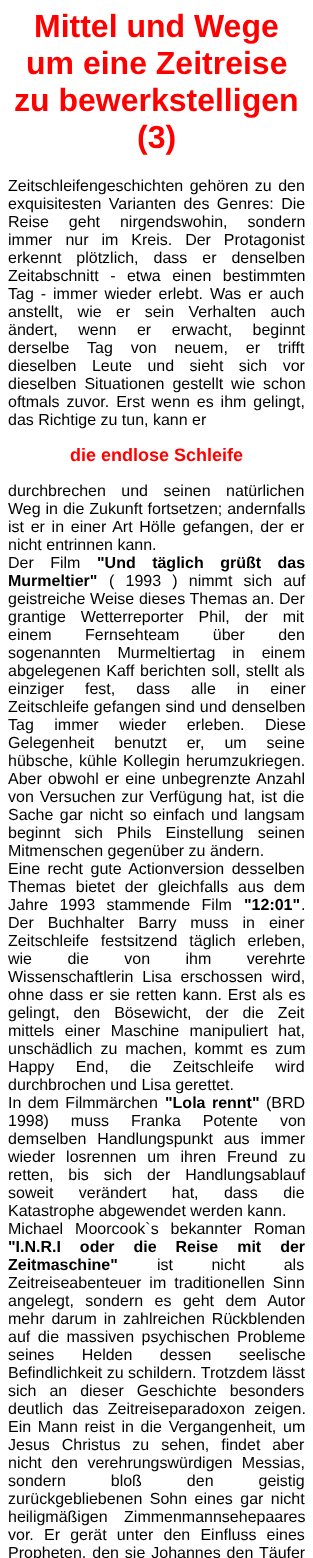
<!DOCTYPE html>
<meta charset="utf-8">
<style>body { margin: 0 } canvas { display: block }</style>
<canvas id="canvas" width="313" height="1558"></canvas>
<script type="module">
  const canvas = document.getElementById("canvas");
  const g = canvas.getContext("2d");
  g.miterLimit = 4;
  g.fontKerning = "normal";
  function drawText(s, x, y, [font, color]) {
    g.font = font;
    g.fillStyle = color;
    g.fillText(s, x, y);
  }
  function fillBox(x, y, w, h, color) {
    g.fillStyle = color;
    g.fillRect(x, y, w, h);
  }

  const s1 = ["bold 32px Liberation Sans", "#FF0000"];
  const s2 = ["16px Liberation Sans", "#000000"];
  const s3 = ["bold 18px Liberation Sans", "#FF0000"];
  const s4 = ["bold 16px Liberation Sans", "#000000"];

  fillBox(0, 0, 313, 1558, "#FFFFFF");
  drawText("Mittel und Wege", 34, 37, s1);
  drawText("um eine Zeitreise", 26, 74, s1);
  drawText("zu bewerkstelligen", 14, 111, s1);
  drawText("(3)", 137, 148, s1);
  g.wordSpacing = "2px";
  drawText("Zeitschleifengeschichten gehören zu den", 8, 191, s2);
  g.wordSpacing = "3px";
  drawText("exquisitesten Varianten des Genres: Die", 8, 209, s2);
  g.wordSpacing = "15.5px";
  drawText("Reise geht nirgendswohin, sondern", 8, 227, s2);
  g.wordSpacing = "8.5px";
  drawText("immer nur im Kreis. Der Protagonist", 8, 245, s2);
  g.wordSpacing = "10.5px";
  drawText("erkennt plötzlich, dass er denselben", 8, 263, s2);
  g.wordSpacing = "7px";
  drawText("Zeitabschnitt - etwa einen bestimmten", 8, 281, s2);
  g.wordSpacing = "2.5px";
  drawText("Tag - immer wieder erlebt. Was er auch", 8, 299, s2);
  g.wordSpacing = "10px";
  drawText("anstellt, wie er sein Verhalten auch", 8, 317, s2);
  g.wordSpacing = "16px";
  drawText("ändert, wenn er erwacht, beginnt", 8, 335, s2);
  g.wordSpacing = "13.5px";
  drawText("derselbe Tag von neuem, er trifft", 8, 353, s2);
  g.wordSpacing = "11px";
  drawText("dieselben Leute und sieht sich vor", 8, 371, s2);
  g.wordSpacing = "3.5px";
  drawText("dieselben Situationen gestellt wie schon", 8, 389, s2);
  g.wordSpacing = "2.5px";
  drawText("oftmals zuvor. Erst wenn es ihm gelingt,", 8, 407, s2);
  g.wordSpacing = "0px";
  drawText("das Richtige zu tun, kann er", 8, 425, s2);
  drawText("die endlose Schleife", 70, 461, s3);
  g.wordSpacing = "11px";
  drawText("durchbrechen und seinen natürlichen", 8, 496, s2);
  g.wordSpacing = "0.5px";
  drawText("Weg in die Zukunft fortsetzen; andernfalls", 8, 514, s2);
  g.wordSpacing = "2.25px";
  drawText("ist er in einer Art Hölle gefangen, der er", 8, 532, s2);
  g.wordSpacing = "0px";
  drawText("nicht entrinnen kann.", 8, 550, s2);
  g.wordSpacing = "12px";
  drawText("Der Film", 8, 568, s2);
  drawText("\"Und täglich grüßt das", 97, 568, s4);
  g.wordSpacing = "0px";
  drawText("Murmeltier\"", 8, 586, s4);
  g.wordSpacing = "6.75px";
  drawText("( 1993 ) nimmt sich auf", 109, 586, s2);
  g.wordSpacing = "0.25px";
  drawText("geistreiche Weise dieses Themas an. Der", 8, 604, s2);
  g.wordSpacing = "10.5px";
  drawText("grantige Wetterreporter Phil, der mit", 8, 622, s2);
  g.wordSpacing = "29px";
  drawText("einem Fernsehteam über den", 8, 640, s2);
  g.wordSpacing = "12.5px";
  drawText("sogenannten Murmeltiertag in einem", 8, 658, s2);
  g.wordSpacing = "1.25px";
  drawText("abgelegenen Kaff berichten soll, stellt als", 8, 676, s2);
  g.wordSpacing = "16.5px";
  drawText("einziger fest, dass alle in einer", 8, 694, s2);
  g.wordSpacing = "0.5px";
  drawText("Zeitschleife gefangen sind und denselben", 8, 712, s2);
  g.wordSpacing = "16px";
  drawText("Tag immer wieder erleben. Diese", 8, 730, s2);
  g.wordSpacing = "15.5px";
  drawText("Gelegenheit benutzt er, um seine", 8, 748, s2);
  g.wordSpacing = "1.5px";
  drawText("hübsche, kühle Kollegin herumzukriegen.", 8, 766, s2);
  g.wordSpacing = "1.75px";
  drawText("Aber obwohl er eine unbegrenzte Anzahl", 8, 784, s2);
  g.wordSpacing = "1.5px";
  drawText("von Versuchen zur Verfügung hat, ist die", 8, 802, s2);
  g.wordSpacing = "2px";
  drawText("Sache gar nicht so einfach und langsam", 8, 820, s2);
  g.wordSpacing = "9.5px";
  drawText("beginnt sich Phils Einstellung seinen", 8, 838, s2);
  g.wordSpacing = "0px";
  drawText("Mitmenschen gegenüber zu ändern.", 8, 856, s2);
  g.wordSpacing = "3px";
  drawText("Eine recht gute Actionversion desselben", 8, 874, s2);
  g.wordSpacing = "5.5px";
  drawText("Themas bietet der gleichfalls aus dem", 8, 892, s2);
  g.wordSpacing = "7px";
  drawText("Jahre 1993 stammende Film", 8, 910, s2);
  g.wordSpacing = "0px";
  drawText("\"12:01\"", 244, 910, s4);
  drawText(".", 301, 910, s2);
  g.wordSpacing = "9.5px";
  drawText("Der Buchhalter Barry muss in einer", 8, 928, s2);
  g.wordSpacing = "7.5px";
  drawText("Zeitschleife festsitzend täglich erleben,", 8, 946, s2);
  g.wordSpacing = "31px";
  drawText("wie die von ihm verehrte", 8, 964, s2);
  g.wordSpacing = "4.5px";
  drawText("Wissenschaftlerin Lisa erschossen wird,", 8, 982, s2);
  g.wordSpacing = "1.5px";
  drawText("ohne dass er sie retten kann. Erst als es", 8, 1000, s2);
  g.wordSpacing = "9.5px";
  drawText("gelingt, den Bösewicht, der die Zeit", 8, 1018, s2);
  g.wordSpacing = "6px";
  drawText("mittels einer Maschine manipuliert hat,", 8, 1036, s2);
  g.wordSpacing = "3.5px";
  drawText("unschädlich zu machen, kommt es zum", 8, 1054, s2);
  g.wordSpacing = "17px";
  drawText("Happy End, die Zeitschleife wird", 8, 1072, s2);
  g.wordSpacing = "0px";
  drawText("durchbrochen und Lisa gerettet.", 8, 1090, s2);
  g.wordSpacing = "2px";
  drawText("In dem Filmmärchen", 8, 1108, s2);
  drawText("\"Lola rennt\"", 165, 1108, s4);
  g.wordSpacing = "0px";
  drawText("(BRD", 266, 1108, s2);
  g.wordSpacing = "17.5px";
  drawText("1998) muss Franka Potente von", 8, 1126, s2);
  g.wordSpacing = "6.5px";
  drawText("demselben Handlungspunkt aus immer", 8, 1144, s2);
  drawText("wieder losrennen um ihren Freund zu", 8, 1162, s2);
  g.wordSpacing = "10.5px";
  drawText("retten, bis sich der Handlungsablauf", 8, 1180, s2);
  g.wordSpacing = "21px";
  drawText("soweit verändert hat, dass die", 8, 1198, s2);
  g.wordSpacing = "0px";
  drawText("Katastrophe abgewendet werden kann.", 8, 1216, s2);
  g.wordSpacing = "7.5px";
  drawText("Michael Moorcook`s bekannter Roman", 8, 1234, s2);
  g.wordSpacing = "14.5px";
  drawText("\"I.N.R.I oder die Reise mit der", 8, 1252, s4);
  g.wordSpacing = "0px";
  drawText("Zeitmaschine\"", 8, 1270, s4);
  g.wordSpacing = "34px";
  drawText("ist nicht als", 157, 1270, s2);
  g.wordSpacing = "3.5px";
  drawText("Zeitreiseabenteuer im traditionellen Sinn", 8, 1288, s2);
  g.wordSpacing = "7px";
  drawText("angelegt, sondern es geht dem Autor", 8, 1306, s2);
  g.wordSpacing = "2.5px";
  drawText("mehr darum in zahlreichen Rückblenden", 8, 1324, s2);
  g.wordSpacing = "3px";
  drawText("auf die massiven psychischen Probleme", 8, 1342, s2);
  g.wordSpacing = "23px";
  drawText("seines Helden dessen seelische", 8, 1360, s2);
  g.wordSpacing = "0px";
  drawText("Befindlichkeit zu schildern. Trotzdem lässt", 8, 1378, s2);
  g.wordSpacing = "8.5px";
  drawText("sich an dieser Geschichte besonders", 8, 1396, s2);
  g.wordSpacing = "5px";
  drawText("deutlich das Zeitreiseparadoxon zeigen.", 8, 1414, s2);
  g.wordSpacing = "2.25px";
  drawText("Ein Mann reist in die Vergangenheit, um", 8, 1432, s2);
  g.wordSpacing = "7.5px";
  drawText("Jesus Christus zu sehen, findet aber", 8, 1450, s2);
  g.wordSpacing = "5px";
  drawText("nicht den verehrungswürdigen Messias,", 8, 1468, s2);
  g.wordSpacing = "40.5px";
  drawText("sondern bloß den geistig", 8, 1486, s2);
  g.wordSpacing = "3px";
  drawText("zurückgebliebenen Sohn eines gar nicht", 8, 1504, s2);
  g.wordSpacing = "12px";
  drawText("heiligmäßigen Zimmenmannsehepaares", 8, 1522, s2);
  g.wordSpacing = "5.75px";
  drawText("vor. Er gerät unter den Einfluss eines", 8, 1540, s2);
  g.wordSpacing = "1.5px";
  drawText("Propheten, den sie Johannes den Täufer", 8, 1558, s2);
</script>
